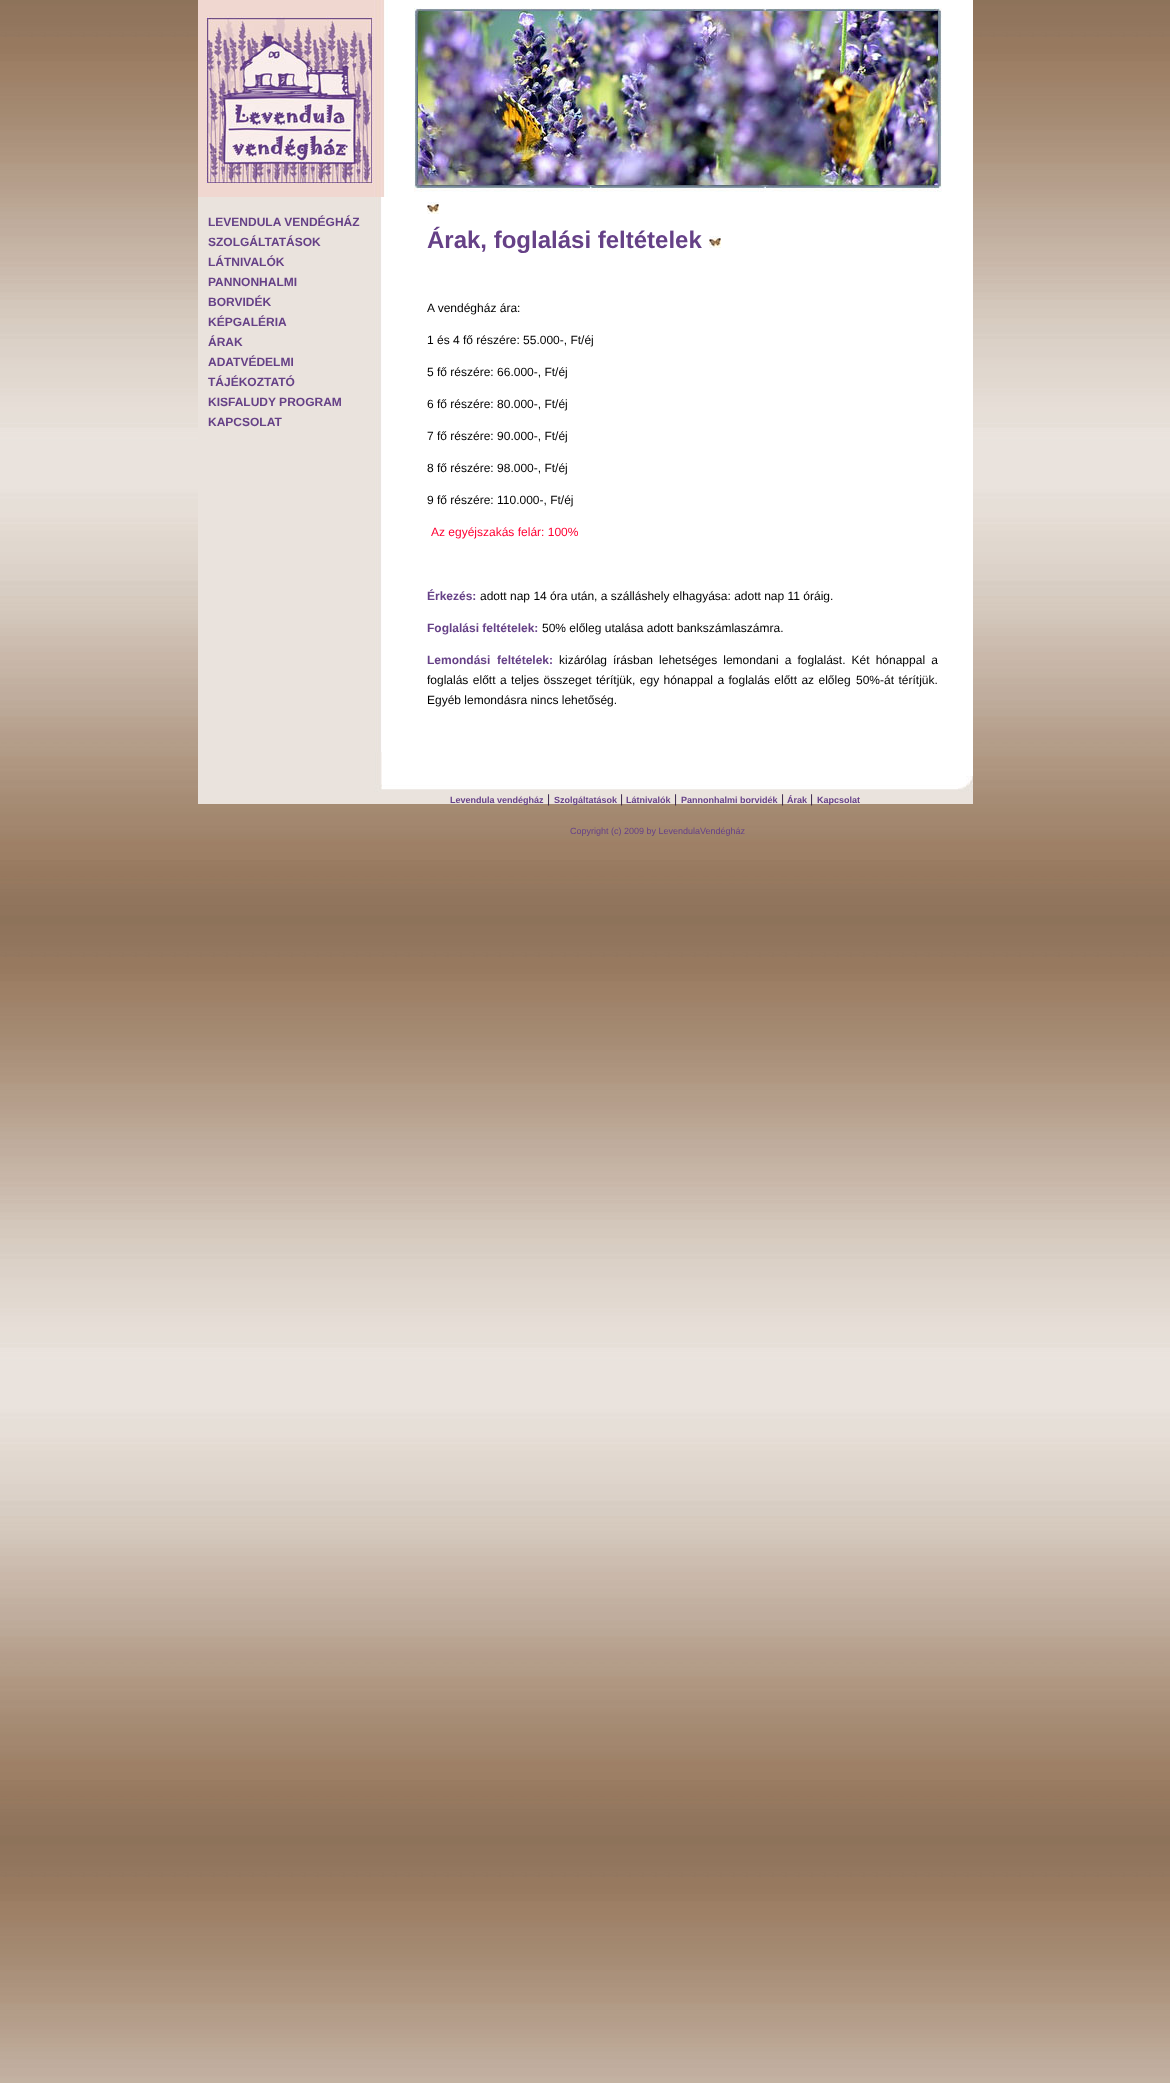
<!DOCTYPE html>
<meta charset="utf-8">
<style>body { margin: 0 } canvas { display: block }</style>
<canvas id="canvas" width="1170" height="2083"></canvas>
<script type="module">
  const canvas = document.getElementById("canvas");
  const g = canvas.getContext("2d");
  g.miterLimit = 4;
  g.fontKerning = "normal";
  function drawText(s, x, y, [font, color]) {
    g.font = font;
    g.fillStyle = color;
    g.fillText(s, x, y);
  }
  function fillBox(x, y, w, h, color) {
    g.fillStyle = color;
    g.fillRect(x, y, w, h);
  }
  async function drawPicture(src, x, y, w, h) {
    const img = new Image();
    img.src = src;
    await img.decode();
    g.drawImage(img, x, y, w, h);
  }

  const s1 = ["bold 12px Liberation Sans", "#664187"];
  const s2 = ["bold 24px Liberation Sans", "#664187"];
  const s3 = ["12px Liberation Sans", "#000000"];
  const s4 = ["12px Liberation Sans", "#FF0033"];
  const s5 = ["bold 9px Liberation Sans", "#664187"];
  const s6 = ["12px Liberation Sans", "#352147"];
  const s7 = ["9px Liberation Sans", "#664187"];

  fillBox(0, 0, 1170, 2083, "#FFFFFF");
  await drawPicture("pic1.png", 0, 0, 1170, 2083);
  await drawPicture("pic2.png", 198, 0, 775, 752);
  await drawPicture("pic3.png", 198, 0, 744, 197);
  drawText("LEVENDULA VENDÉGHÁZ", 208, 226, s1);
  drawText("SZOLGÁLTATÁSOK", 208, 246, s1);
  drawText("LÁTNIVALÓK", 208, 266, s1);
  drawText("PANNONHALMI", 208, 286, s1);
  drawText("BORVIDÉK", 208, 306, s1);
  drawText("KÉPGALÉRIA", 208, 326, s1);
  drawText("ÁRAK", 208, 346, s1);
  drawText("ADATVÉDELMI", 208, 366, s1);
  drawText("TÁJÉKOZTATÓ", 208, 386, s1);
  drawText("KISFALUDY PROGRAM", 208, 406, s1);
  drawText("KAPCSOLAT", 208, 426, s1);
  await drawPicture("pic4.png", 427, 202, 12, 12);
  drawText("Árak, foglalási feltételek", 427, 248, s2);
  await drawPicture("pic4.png", 709, 236, 12, 12);
  drawText("A vendégház ára:", 427, 312, s3);
  drawText("1 és 4 fő részére: 55.000-, Ft/éj", 427, 344, s3);
  drawText("5 fő részére: 66.000-, Ft/éj", 427, 376, s3);
  drawText("6 fő részére: 80.000-, Ft/éj", 427, 408, s3);
  drawText("7 fő részére: 90.000-, Ft/éj", 427, 440, s3);
  drawText("8 fő részére: 98.000-, Ft/éj", 427, 472, s3);
  drawText("9 fő részére: 110.000-, Ft/éj", 427, 504, s3);
  drawText("Az egyéjszakás felár: 100%", 431, 536, s4);
  drawText("Érkezés:", 427, 600, s1);
  drawText("adott nap 14 óra után, a szálláshely elhagyása: adott nap 11 óráig.", 480, 600, s3);
  drawText("Foglalási feltételek:", 427, 632, s1);
  drawText("50% előleg utalása adott bankszámlaszámra.", 542, 632, s3);
  drawText("Lemondási", 427, 664, s1);
  drawText("feltételek:", 497, 664, s1);
  drawText("kizárólag", 559, 664, s3);
  g.wordSpacing = "2.75px";
  drawText("írásban lehetséges lemondani a foglalást. Két hónappal a", 613, 664, s3);
  g.wordSpacing = "1.1px";
  drawText("foglalás előtt", 427, 684, s3);
  drawText("a teljes összeget térítjük, egy hónappal a foglalás előtt az előleg", 500, 684, s3);
  drawText("50%-át térítjük.", 856, 684, s3);
  g.wordSpacing = "0px";
  drawText("Egyéb lemondásra nincs lehetőség.", 427, 704, s3);
  await drawPicture("pic5.png", 198, 752, 775, 52);
  drawText("Levendula vendégház", 450, 803, s5);
  drawText("|", 547, 803, s6);
  drawText("Szolgáltatások", 554, 803, s5);
  drawText("|", 620, 803, s6);
  drawText("Látnivalók", 626, 803, s5);
  drawText("|", 674, 803, s6);
  drawText("Pannonhalmi borvidék", 681, 803, s5);
  drawText("|", 781, 803, s6);
  drawText("Árak", 787, 803, s5);
  drawText("|", 810, 803, s6);
  drawText("Kapcsolat", 817, 803, s5);
  drawText("Copyright (c) 2009 by LevendulaVendégház", 570, 834, s7);
</script>
